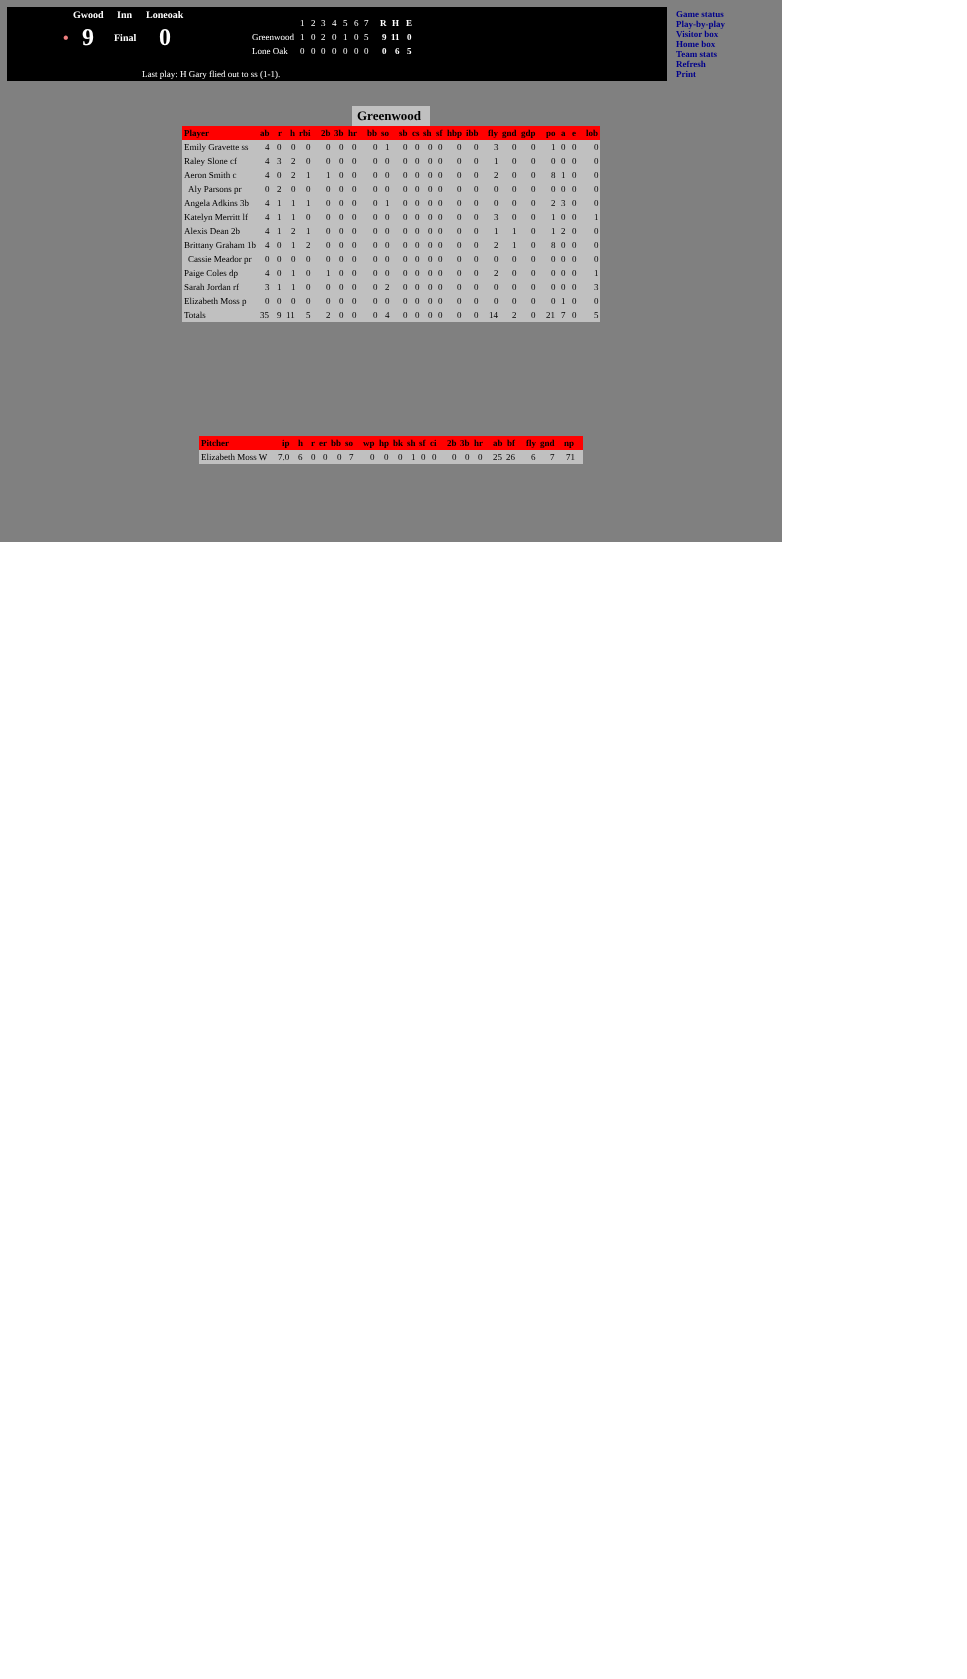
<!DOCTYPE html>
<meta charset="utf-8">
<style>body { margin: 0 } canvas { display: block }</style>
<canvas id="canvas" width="967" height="1679"></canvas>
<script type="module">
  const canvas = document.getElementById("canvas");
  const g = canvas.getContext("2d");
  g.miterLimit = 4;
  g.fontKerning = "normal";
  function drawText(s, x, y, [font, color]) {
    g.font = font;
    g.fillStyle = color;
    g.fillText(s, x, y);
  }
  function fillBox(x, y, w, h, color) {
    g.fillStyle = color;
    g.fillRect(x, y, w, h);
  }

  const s1 = ["bold 10px Liberation Serif", "#FFFFFF"];
  const s2 = ["9px Liberation Serif", "#FFFFFF"];
  const s3 = ["bold 9px Liberation Serif", "#FFFFFF"];
  const s4 = ["bold 16px Liberation Serif", "#F08080"];
  const s5 = ["bold 24px Liberation Serif", "#FFFFFF"];
  const s6 = ["bold 9px Liberation Serif", "#00008B"];
  const s7 = ["bold 13px Liberation Serif", "#000000"];
  const s8 = ["bold 9px Liberation Serif", "#000000"];
  const s9 = ["9px Liberation Serif", "#000000"];

  fillBox(0, 0, 967, 1679, "#FFFFFF");
  fillBox(0, 0, 782, 542, "#808080");
  fillBox(7, 7, 660, 74, "#000000");
  drawText("Gwood", 73, 18, s1);
  drawText("Inn", 117, 18, s1);
  drawText("Loneoak", 146, 18, s1);
  drawText("1", 300, 26, s2);
  drawText("2", 311, 26, s2);
  drawText("3", 321, 26, s2);
  drawText("4", 332, 26, s2);
  drawText("5", 343, 26, s2);
  drawText("6", 354, 26, s2);
  drawText("7", 364, 26, s2);
  drawText("R", 380, 26, s3);
  drawText("H", 392, 26, s3);
  drawText("E", 406, 26, s3);
  drawText("Greenwood", 252, 40, s2);
  drawText("1", 300, 40, s2);
  drawText("0", 311, 40, s2);
  drawText("2", 321, 40, s2);
  drawText("0", 332, 40, s2);
  drawText("1", 343, 40, s2);
  drawText("0", 354, 40, s2);
  drawText("5", 364, 40, s2);
  drawText("9", 382, 40, s3);
  drawText("11", 391, 40, s3);
  drawText("0", 407, 40, s3);
  drawText("Lone Oak", 252, 54, s2);
  drawText("0", 300, 54, s2);
  drawText("0", 311, 54, s2);
  drawText("0", 321, 54, s2);
  drawText("0", 332, 54, s2);
  drawText("0", 343, 54, s2);
  drawText("0", 354, 54, s2);
  drawText("0", 364, 54, s2);
  drawText("0", 382, 54, s3);
  drawText("6", 395, 54, s3);
  drawText("5", 407, 54, s3);
  drawText("•", 63, 43, s4);
  drawText("9", 82, 45, s5);
  drawText("Final", 114, 41, s1);
  drawText("0", 159, 45, s5);
  drawText("Last play: H Gary flied out to ss (1-1).", 142, 77, s2);
  drawText("Game status", 676, 17, s6);
  drawText("Play-by-play", 676, 27, s6);
  drawText("Visitor box", 676, 37, s6);
  drawText("Home box", 676, 47, s6);
  drawText("Team stats", 676, 57, s6);
  drawText("Refresh", 676, 67, s6);
  drawText("Print", 676, 77, s6);
  fillBox(352, 106, 78, 20, "#C0C0C0");
  drawText("Greenwood", 357, 120, s7);
  fillBox(182, 126, 418, 14, "#FF0000");
  drawText("Player", 184, 136, s8);
  drawText("ab", 260, 136, s8);
  drawText("r", 278, 136, s8);
  drawText("h", 290, 136, s8);
  drawText("rbi", 299, 136, s8);
  drawText("2b", 321, 136, s8);
  drawText("3b", 334, 136, s8);
  drawText("hr", 348, 136, s8);
  drawText("bb", 367, 136, s8);
  drawText("so", 381, 136, s8);
  drawText("sb", 399, 136, s8);
  drawText("cs", 412, 136, s8);
  drawText("sh", 423, 136, s8);
  drawText("sf", 436, 136, s8);
  drawText("hbp", 447, 136, s8);
  drawText("ibb", 466, 136, s8);
  drawText("fly", 488, 136, s8);
  drawText("gnd", 502, 136, s8);
  drawText("gdp", 521, 136, s8);
  drawText("po", 546, 136, s8);
  drawText("a", 561, 136, s8);
  drawText("e", 572, 136, s8);
  drawText("lob", 586, 136, s8);
  fillBox(182, 140, 418, 14, "#C0C0C0");
  drawText("Emily Gravette ss", 184, 150, s9);
  drawText("4", 265, 150, s9);
  drawText("0", 277, 150, s9);
  drawText("0", 291, 150, s9);
  drawText("0", 306, 150, s9);
  drawText("0", 326, 150, s9);
  drawText("0", 339, 150, s9);
  drawText("0", 352, 150, s9);
  drawText("0", 373, 150, s9);
  drawText("1", 385, 150, s9);
  drawText("0", 403, 150, s9);
  drawText("0", 415, 150, s9);
  drawText("0", 428, 150, s9);
  drawText("0", 438, 150, s9);
  drawText("0", 457, 150, s9);
  drawText("0", 474, 150, s9);
  drawText("3", 494, 150, s9);
  drawText("0", 512, 150, s9);
  drawText("0", 531, 150, s9);
  drawText("1", 551, 150, s9);
  drawText("0", 561, 150, s9);
  drawText("0", 572, 150, s9);
  drawText("0", 594, 150, s9);
  fillBox(182, 154, 418, 14, "#C0C0C0");
  drawText("Raley Slone cf", 184, 164, s9);
  drawText("4", 265, 164, s9);
  drawText("3", 277, 164, s9);
  drawText("2", 291, 164, s9);
  drawText("0", 306, 164, s9);
  drawText("0", 326, 164, s9);
  drawText("0", 339, 164, s9);
  drawText("0", 352, 164, s9);
  drawText("0", 373, 164, s9);
  drawText("0", 385, 164, s9);
  drawText("0", 403, 164, s9);
  drawText("0", 415, 164, s9);
  drawText("0", 428, 164, s9);
  drawText("0", 438, 164, s9);
  drawText("0", 457, 164, s9);
  drawText("0", 474, 164, s9);
  drawText("1", 494, 164, s9);
  drawText("0", 512, 164, s9);
  drawText("0", 531, 164, s9);
  drawText("0", 551, 164, s9);
  drawText("0", 561, 164, s9);
  drawText("0", 572, 164, s9);
  drawText("0", 594, 164, s9);
  fillBox(182, 168, 418, 14, "#C0C0C0");
  drawText("Aeron Smith c", 184, 178, s9);
  drawText("4", 265, 178, s9);
  drawText("0", 277, 178, s9);
  drawText("2", 291, 178, s9);
  drawText("1", 306, 178, s9);
  drawText("1", 326, 178, s9);
  drawText("0", 339, 178, s9);
  drawText("0", 352, 178, s9);
  drawText("0", 373, 178, s9);
  drawText("0", 385, 178, s9);
  drawText("0", 403, 178, s9);
  drawText("0", 415, 178, s9);
  drawText("0", 428, 178, s9);
  drawText("0", 438, 178, s9);
  drawText("0", 457, 178, s9);
  drawText("0", 474, 178, s9);
  drawText("2", 494, 178, s9);
  drawText("0", 512, 178, s9);
  drawText("0", 531, 178, s9);
  drawText("8", 551, 178, s9);
  drawText("1", 561, 178, s9);
  drawText("0", 572, 178, s9);
  drawText("0", 594, 178, s9);
  fillBox(182, 182, 418, 14, "#C0C0C0");
  drawText("Aly Parsons pr", 188, 192, s9);
  drawText("0", 265, 192, s9);
  drawText("2", 277, 192, s9);
  drawText("0", 291, 192, s9);
  drawText("0", 306, 192, s9);
  drawText("0", 326, 192, s9);
  drawText("0", 339, 192, s9);
  drawText("0", 352, 192, s9);
  drawText("0", 373, 192, s9);
  drawText("0", 385, 192, s9);
  drawText("0", 403, 192, s9);
  drawText("0", 415, 192, s9);
  drawText("0", 428, 192, s9);
  drawText("0", 438, 192, s9);
  drawText("0", 457, 192, s9);
  drawText("0", 474, 192, s9);
  drawText("0", 494, 192, s9);
  drawText("0", 512, 192, s9);
  drawText("0", 531, 192, s9);
  drawText("0", 551, 192, s9);
  drawText("0", 561, 192, s9);
  drawText("0", 572, 192, s9);
  drawText("0", 594, 192, s9);
  fillBox(182, 196, 418, 14, "#C0C0C0");
  drawText("Angela Adkins 3b", 184, 206, s9);
  drawText("4", 265, 206, s9);
  drawText("1", 277, 206, s9);
  drawText("1", 291, 206, s9);
  drawText("1", 306, 206, s9);
  drawText("0", 326, 206, s9);
  drawText("0", 339, 206, s9);
  drawText("0", 352, 206, s9);
  drawText("0", 373, 206, s9);
  drawText("1", 385, 206, s9);
  drawText("0", 403, 206, s9);
  drawText("0", 415, 206, s9);
  drawText("0", 428, 206, s9);
  drawText("0", 438, 206, s9);
  drawText("0", 457, 206, s9);
  drawText("0", 474, 206, s9);
  drawText("0", 494, 206, s9);
  drawText("0", 512, 206, s9);
  drawText("0", 531, 206, s9);
  drawText("2", 551, 206, s9);
  drawText("3", 561, 206, s9);
  drawText("0", 572, 206, s9);
  drawText("0", 594, 206, s9);
  fillBox(182, 210, 418, 14, "#C0C0C0");
  drawText("Katelyn Merritt lf", 184, 220, s9);
  drawText("4", 265, 220, s9);
  drawText("1", 277, 220, s9);
  drawText("1", 291, 220, s9);
  drawText("0", 306, 220, s9);
  drawText("0", 326, 220, s9);
  drawText("0", 339, 220, s9);
  drawText("0", 352, 220, s9);
  drawText("0", 373, 220, s9);
  drawText("0", 385, 220, s9);
  drawText("0", 403, 220, s9);
  drawText("0", 415, 220, s9);
  drawText("0", 428, 220, s9);
  drawText("0", 438, 220, s9);
  drawText("0", 457, 220, s9);
  drawText("0", 474, 220, s9);
  drawText("3", 494, 220, s9);
  drawText("0", 512, 220, s9);
  drawText("0", 531, 220, s9);
  drawText("1", 551, 220, s9);
  drawText("0", 561, 220, s9);
  drawText("0", 572, 220, s9);
  drawText("1", 594, 220, s9);
  fillBox(182, 224, 418, 14, "#C0C0C0");
  drawText("Alexis Dean 2b", 184, 234, s9);
  drawText("4", 265, 234, s9);
  drawText("1", 277, 234, s9);
  drawText("2", 291, 234, s9);
  drawText("1", 306, 234, s9);
  drawText("0", 326, 234, s9);
  drawText("0", 339, 234, s9);
  drawText("0", 352, 234, s9);
  drawText("0", 373, 234, s9);
  drawText("0", 385, 234, s9);
  drawText("0", 403, 234, s9);
  drawText("0", 415, 234, s9);
  drawText("0", 428, 234, s9);
  drawText("0", 438, 234, s9);
  drawText("0", 457, 234, s9);
  drawText("0", 474, 234, s9);
  drawText("1", 494, 234, s9);
  drawText("1", 512, 234, s9);
  drawText("0", 531, 234, s9);
  drawText("1", 551, 234, s9);
  drawText("2", 561, 234, s9);
  drawText("0", 572, 234, s9);
  drawText("0", 594, 234, s9);
  fillBox(182, 238, 418, 14, "#C0C0C0");
  drawText("Brittany Graham 1b", 184, 248, s9);
  drawText("4", 265, 248, s9);
  drawText("0", 277, 248, s9);
  drawText("1", 291, 248, s9);
  drawText("2", 306, 248, s9);
  drawText("0", 326, 248, s9);
  drawText("0", 339, 248, s9);
  drawText("0", 352, 248, s9);
  drawText("0", 373, 248, s9);
  drawText("0", 385, 248, s9);
  drawText("0", 403, 248, s9);
  drawText("0", 415, 248, s9);
  drawText("0", 428, 248, s9);
  drawText("0", 438, 248, s9);
  drawText("0", 457, 248, s9);
  drawText("0", 474, 248, s9);
  drawText("2", 494, 248, s9);
  drawText("1", 512, 248, s9);
  drawText("0", 531, 248, s9);
  drawText("8", 551, 248, s9);
  drawText("0", 561, 248, s9);
  drawText("0", 572, 248, s9);
  drawText("0", 594, 248, s9);
  fillBox(182, 252, 418, 14, "#C0C0C0");
  drawText("Cassie Meador pr", 188, 262, s9);
  drawText("0", 265, 262, s9);
  drawText("0", 277, 262, s9);
  drawText("0", 291, 262, s9);
  drawText("0", 306, 262, s9);
  drawText("0", 326, 262, s9);
  drawText("0", 339, 262, s9);
  drawText("0", 352, 262, s9);
  drawText("0", 373, 262, s9);
  drawText("0", 385, 262, s9);
  drawText("0", 403, 262, s9);
  drawText("0", 415, 262, s9);
  drawText("0", 428, 262, s9);
  drawText("0", 438, 262, s9);
  drawText("0", 457, 262, s9);
  drawText("0", 474, 262, s9);
  drawText("0", 494, 262, s9);
  drawText("0", 512, 262, s9);
  drawText("0", 531, 262, s9);
  drawText("0", 551, 262, s9);
  drawText("0", 561, 262, s9);
  drawText("0", 572, 262, s9);
  drawText("0", 594, 262, s9);
  fillBox(182, 266, 418, 14, "#C0C0C0");
  drawText("Paige Coles dp", 184, 276, s9);
  drawText("4", 265, 276, s9);
  drawText("0", 277, 276, s9);
  drawText("1", 291, 276, s9);
  drawText("0", 306, 276, s9);
  drawText("1", 326, 276, s9);
  drawText("0", 339, 276, s9);
  drawText("0", 352, 276, s9);
  drawText("0", 373, 276, s9);
  drawText("0", 385, 276, s9);
  drawText("0", 403, 276, s9);
  drawText("0", 415, 276, s9);
  drawText("0", 428, 276, s9);
  drawText("0", 438, 276, s9);
  drawText("0", 457, 276, s9);
  drawText("0", 474, 276, s9);
  drawText("2", 494, 276, s9);
  drawText("0", 512, 276, s9);
  drawText("0", 531, 276, s9);
  drawText("0", 551, 276, s9);
  drawText("0", 561, 276, s9);
  drawText("0", 572, 276, s9);
  drawText("1", 594, 276, s9);
  fillBox(182, 280, 418, 14, "#C0C0C0");
  drawText("Sarah Jordan rf", 184, 290, s9);
  drawText("3", 265, 290, s9);
  drawText("1", 277, 290, s9);
  drawText("1", 291, 290, s9);
  drawText("0", 306, 290, s9);
  drawText("0", 326, 290, s9);
  drawText("0", 339, 290, s9);
  drawText("0", 352, 290, s9);
  drawText("0", 373, 290, s9);
  drawText("2", 385, 290, s9);
  drawText("0", 403, 290, s9);
  drawText("0", 415, 290, s9);
  drawText("0", 428, 290, s9);
  drawText("0", 438, 290, s9);
  drawText("0", 457, 290, s9);
  drawText("0", 474, 290, s9);
  drawText("0", 494, 290, s9);
  drawText("0", 512, 290, s9);
  drawText("0", 531, 290, s9);
  drawText("0", 551, 290, s9);
  drawText("0", 561, 290, s9);
  drawText("0", 572, 290, s9);
  drawText("3", 594, 290, s9);
  fillBox(182, 294, 418, 14, "#C0C0C0");
  drawText("Elizabeth Moss p", 184, 304, s9);
  drawText("0", 265, 304, s9);
  drawText("0", 277, 304, s9);
  drawText("0", 291, 304, s9);
  drawText("0", 306, 304, s9);
  drawText("0", 326, 304, s9);
  drawText("0", 339, 304, s9);
  drawText("0", 352, 304, s9);
  drawText("0", 373, 304, s9);
  drawText("0", 385, 304, s9);
  drawText("0", 403, 304, s9);
  drawText("0", 415, 304, s9);
  drawText("0", 428, 304, s9);
  drawText("0", 438, 304, s9);
  drawText("0", 457, 304, s9);
  drawText("0", 474, 304, s9);
  drawText("0", 494, 304, s9);
  drawText("0", 512, 304, s9);
  drawText("0", 531, 304, s9);
  drawText("0", 551, 304, s9);
  drawText("1", 561, 304, s9);
  drawText("0", 572, 304, s9);
  drawText("0", 594, 304, s9);
  fillBox(182, 308, 418, 14, "#C0C0C0");
  drawText("Totals", 184, 318, s9);
  drawText("35", 260, 318, s9);
  drawText("9", 277, 318, s9);
  drawText("11", 286, 318, s9);
  drawText("5", 306, 318, s9);
  drawText("2", 326, 318, s9);
  drawText("0", 339, 318, s9);
  drawText("0", 352, 318, s9);
  drawText("0", 373, 318, s9);
  drawText("4", 385, 318, s9);
  drawText("0", 403, 318, s9);
  drawText("0", 415, 318, s9);
  drawText("0", 428, 318, s9);
  drawText("0", 438, 318, s9);
  drawText("0", 457, 318, s9);
  drawText("0", 474, 318, s9);
  drawText("14", 489, 318, s9);
  drawText("2", 512, 318, s9);
  drawText("0", 531, 318, s9);
  drawText("21", 546, 318, s9);
  drawText("7", 561, 318, s9);
  drawText("0", 572, 318, s9);
  drawText("5", 594, 318, s9);
  fillBox(199, 436, 384, 14, "#FF0000");
  drawText("Pitcher", 201, 446, s8);
  drawText("ip", 282, 446, s8);
  drawText("h", 298, 446, s8);
  drawText("r", 311, 446, s8);
  drawText("er", 319, 446, s8);
  drawText("bb", 331, 446, s8);
  drawText("so", 345, 446, s8);
  drawText("wp", 363, 446, s8);
  drawText("hp", 379, 446, s8);
  drawText("bk", 393, 446, s8);
  drawText("sh", 407, 446, s8);
  drawText("sf", 419, 446, s8);
  drawText("ci", 430, 446, s8);
  drawText("2b", 447, 446, s8);
  drawText("3b", 460, 446, s8);
  drawText("hr", 474, 446, s8);
  drawText("ab", 493, 446, s8);
  drawText("bf", 507, 446, s8);
  drawText("fly", 526, 446, s8);
  drawText("gnd", 540, 446, s8);
  drawText("np", 564, 446, s8);
  fillBox(199, 450, 384, 14, "#C0C0C0");
  drawText("Elizabeth Moss W", 201, 460, s9);
  drawText("7.0", 278, 460, s9);
  drawText("6", 298, 460, s9);
  drawText("0", 311, 460, s9);
  drawText("0", 323, 460, s9);
  drawText("0", 337, 460, s9);
  drawText("7", 349, 460, s9);
  drawText("0", 370, 460, s9);
  drawText("0", 384, 460, s9);
  drawText("0", 398, 460, s9);
  drawText("1", 411, 460, s9);
  drawText("0", 421, 460, s9);
  drawText("0", 432, 460, s9);
  drawText("0", 452, 460, s9);
  drawText("0", 465, 460, s9);
  drawText("0", 478, 460, s9);
  drawText("25", 493, 460, s9);
  drawText("26", 506, 460, s9);
  drawText("6", 531, 460, s9);
  drawText("7", 550, 460, s9);
  drawText("71", 566, 460, s9);
</script>
